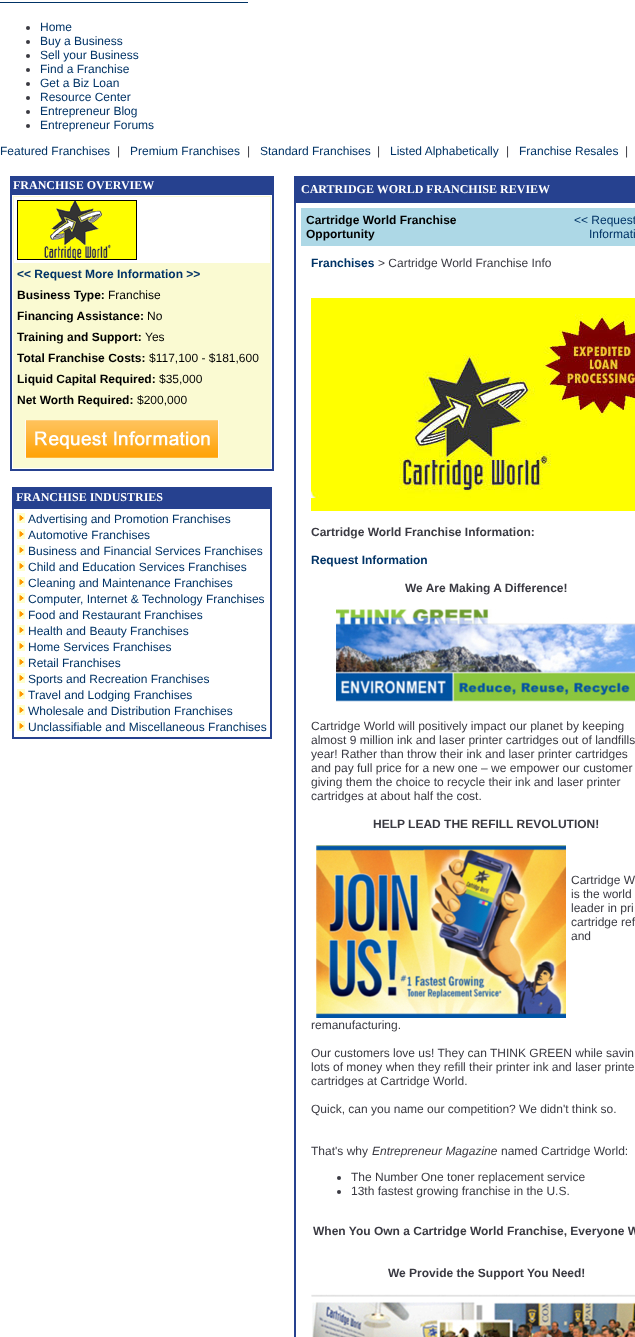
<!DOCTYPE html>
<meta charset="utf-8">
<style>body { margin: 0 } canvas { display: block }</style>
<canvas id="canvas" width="635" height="1337"></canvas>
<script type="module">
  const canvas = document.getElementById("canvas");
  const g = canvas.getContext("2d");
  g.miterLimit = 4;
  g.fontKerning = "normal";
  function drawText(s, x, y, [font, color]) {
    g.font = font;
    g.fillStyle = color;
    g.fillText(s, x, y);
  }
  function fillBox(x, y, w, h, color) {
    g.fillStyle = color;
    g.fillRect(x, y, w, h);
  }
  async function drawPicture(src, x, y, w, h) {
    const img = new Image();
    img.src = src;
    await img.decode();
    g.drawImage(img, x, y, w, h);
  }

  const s1 = ["12px Liberation Sans", "#003366"];
  const s2 = ["12px Liberation Sans", "#3A3A42"];
  const s3 = ["bold 12px Liberation Serif", "#FFFFFF"];
  const s4 = ["bold 12px Liberation Sans", "#003366"];
  const s5 = ["bold 12px Liberation Sans", "#000000"];
  const s6 = ["12px Liberation Sans", "#000000"];
  const s7 = ["bold 12px Liberation Sans", "#3A3A42"];
  const s8 = ["italic 12px Liberation Sans", "#3A3A42"];

  fillBox(0, 0, 635, 1337, "#FFFFFF");
  fillBox(0, 2, 248, 1, "#003366");
  g.fillStyle = "#3A3A42";
  g.beginPath();
  g.arc(28, 28, 2, 0, Math.PI * 2);
  g.fill();
  drawText("Home", 40, 31, s1);
  g.fillStyle = "#3A3A42";
  g.beginPath();
  g.arc(28, 42, 2, 0, Math.PI * 2);
  g.fill();
  drawText("Buy a Business", 40, 45, s1);
  g.fillStyle = "#3A3A42";
  g.beginPath();
  g.arc(28, 56, 2, 0, Math.PI * 2);
  g.fill();
  drawText("Sell your Business", 40, 59, s1);
  g.fillStyle = "#3A3A42";
  g.beginPath();
  g.arc(28, 70, 2, 0, Math.PI * 2);
  g.fill();
  drawText("Find a Franchise", 40, 73, s1);
  g.fillStyle = "#3A3A42";
  g.beginPath();
  g.arc(28, 84, 2, 0, Math.PI * 2);
  g.fill();
  drawText("Get a Biz Loan", 40, 87, s1);
  g.fillStyle = "#3A3A42";
  g.beginPath();
  g.arc(28, 98, 2, 0, Math.PI * 2);
  g.fill();
  drawText("Resource Center", 40, 101, s1);
  g.fillStyle = "#3A3A42";
  g.beginPath();
  g.arc(28, 112, 2, 0, Math.PI * 2);
  g.fill();
  drawText("Entrepreneur Blog", 40, 115, s1);
  g.fillStyle = "#3A3A42";
  g.beginPath();
  g.arc(28, 126, 2, 0, Math.PI * 2);
  g.fill();
  drawText("Entrepreneur Forums", 40, 129, s1);
  drawText("Featured Franchises", 0, 155, s1);
  drawText("|", 117, 155, s2);
  drawText("Premium Franchises", 130, 155, s1);
  drawText("|", 247, 155, s2);
  drawText("Standard Franchises", 260, 155, s1);
  drawText("|", 377, 155, s2);
  drawText("Listed Alphabetically", 390, 155, s1);
  drawText("|", 506, 155, s2);
  drawText("Franchise Resales", 519, 155, s1);
  drawText("|", 625, 155, s2);
  g.strokeStyle = "#26418F";
  g.strokeRect(10.5, 176.5, 263, 294);
  fillBox(11, 177, 262, 17, "#26418F");
  drawText("FRANCHISE OVERVIEW", 13, 189, s3);
  g.strokeRect(11.5, 194.5, 261, 275);
  fillBox(13, 196, 258, 272, "#FAFAD2");
  fillBox(14, 197, 256, 66, "#FFFFFF");
  await drawPicture("pic1.png", 17, 200, 120, 60);
  drawText("<< Request More Information >>", 17, 278, s4);
  drawText("Business Type:", 17, 299, s5);
  drawText("Franchise", 108, 299, s6);
  drawText("Financing Assistance:", 17, 320, s5);
  drawText("No", 147, 320, s6);
  drawText("Training and Support:", 17, 341, s5);
  drawText("Yes", 145, 341, s6);
  drawText("Total Franchise Costs:", 17, 362, s5);
  drawText("$117,100 - $181,600", 149, 362, s6);
  drawText("Liquid Capital Required:", 17, 383, s5);
  drawText("$35,000", 159, 383, s6);
  drawText("Net Worth Required:", 17, 404, s5);
  drawText("$200,000", 137, 404, s6);
  await drawPicture("pic2.png", 25, 420, 194, 38);
  g.strokeRect(12.5, 487.5, 259, 251);
  fillBox(13, 488, 258, 20, "#26418F");
  drawText("FRANCHISE INDUSTRIES", 16, 501, s3);
  g.strokeRect(13.5, 508.5, 257, 229);
  await drawPicture("pic3.png", 17, 513, 8, 10);
  drawText("Advertising and Promotion Franchises", 28, 523, s1);
  await drawPicture("pic3.png", 17, 529, 8, 10);
  drawText("Automotive Franchises", 28, 539, s1);
  await drawPicture("pic3.png", 17, 545, 8, 10);
  drawText("Business and Financial Services Franchises", 28, 555, s1);
  await drawPicture("pic3.png", 17, 561, 8, 10);
  drawText("Child and Education Services Franchises", 28, 571, s1);
  await drawPicture("pic4.png", 17, 577, 8, 10);
  drawText("Cleaning and Maintenance Franchises", 28, 587, s1);
  await drawPicture("pic4.png", 17, 593, 8, 10);
  drawText("Computer, Internet & Technology Franchises", 28, 603, s1);
  await drawPicture("pic3.png", 17, 609, 8, 10);
  drawText("Food and Restaurant Franchises", 28, 619, s1);
  await drawPicture("pic3.png", 17, 625, 8, 10);
  drawText("Health and Beauty Franchises", 28, 635, s1);
  await drawPicture("pic3.png", 17, 641, 8, 10);
  drawText("Home Services Franchises", 28, 651, s1);
  await drawPicture("pic3.png", 17, 657, 8, 10);
  drawText("Retail Franchises", 28, 667, s1);
  await drawPicture("pic3.png", 17, 673, 8, 10);
  drawText("Sports and Recreation Franchises", 28, 683, s1);
  await drawPicture("pic3.png", 17, 689, 8, 10);
  drawText("Travel and Lodging Franchises", 28, 699, s1);
  await drawPicture("pic3.png", 17, 705, 8, 10);
  drawText("Wholesale and Distribution Franchises", 28, 715, s1);
  await drawPicture("pic3.png", 17, 721, 8, 10);
  drawText("Unclassifiable and Miscellaneous Franchises", 28, 731, s1);
  g.strokeRect(294.5, 176.5, 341, 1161);
  fillBox(295, 177, 340, 25, "#26418F");
  drawText("CARTRIDGE WORLD FRANCHISE REVIEW", 301, 193, s3);
  g.strokeRect(295.5, 202.5, 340, 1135);
  fillBox(301, 208, 334, 38, "#ADD8E6");
  drawText("Cartridge World Franchise", 306, 224, s5);
  drawText("Opportunity", 306, 238, s5);
  drawText("<< Request", 574, 224, s1);
  drawText("Informati", 589, 238, s1);
  drawText("Franchises", 311, 267, s4);
  drawText("> Cartridge World Franchise Info", 378, 267, s2);
  await drawPicture("pic5.png", 311, 298, 324, 213);
  drawText("Cartridge World Franchise Information:", 311, 536, s7);
  drawText("Request Information", 311, 564, s4);
  drawText("We Are Making A Difference!", 405, 592, s7);
  await drawPicture("pic6.png", 336, 609, 299, 93);
  drawText("Cartridge World will positively impact our planet by keeping", 311, 730, s2);
  drawText("almost 9 million ink and laser printer cartridges out of landfills", 311, 744, s2);
  drawText("year! Rather than throw their ink and laser printer cartridges", 311, 758, s2);
  drawText("and pay full price for a new one – we empower our customer", 311, 772, s2);
  drawText("giving them the choice to recycle their ink and laser printer", 311, 786, s2);
  drawText("cartridges at about half the cost.", 311, 800, s2);
  drawText("HELP LEAD THE REFILL REVOLUTION!", 373, 828, s7);
  await drawPicture("pic7.png", 316, 845, 250, 173);
  drawText("Cartridge W", 571, 884, s2);
  drawText("is the world", 571, 898, s2);
  drawText("leader in pri", 571, 912, s2);
  drawText("cartridge ref", 571, 926, s2);
  drawText("and", 571, 940, s2);
  drawText("remanufacturing.", 311, 1029, s2);
  drawText("Our customers love us! They can THINK GREEN while savin", 311, 1057, s2);
  drawText("lots of money when they refill their printer ink and laser printe", 311, 1071, s2);
  drawText("cartridges at Cartridge World.", 311, 1085, s2);
  drawText("Quick, can you name our competition? We didn't think so.", 311, 1113, s2);
  drawText("That's why", 311, 1155, s2);
  drawText("Entrepreneur Magazine", 372, 1155, s8);
  drawText("named Cartridge World:", 501, 1155, s2);
  g.beginPath();
  g.arc(339, 1178, 2, 0, Math.PI * 2);
  g.fill();
  drawText("The Number One toner replacement service", 351, 1181, s2);
  g.beginPath();
  g.arc(339, 1192, 2, 0, Math.PI * 2);
  g.fill();
  drawText("13th fastest growing franchise in the U.S.", 351, 1195, s2);
  drawText("When You Own a Cartridge World Franchise, Everyone W", 313, 1235, s7);
  drawText("We Provide the Support You Need!", 388, 1277, s7);
  await drawPicture("pic8.png", 311, 1294, 324, 43);
</script>
